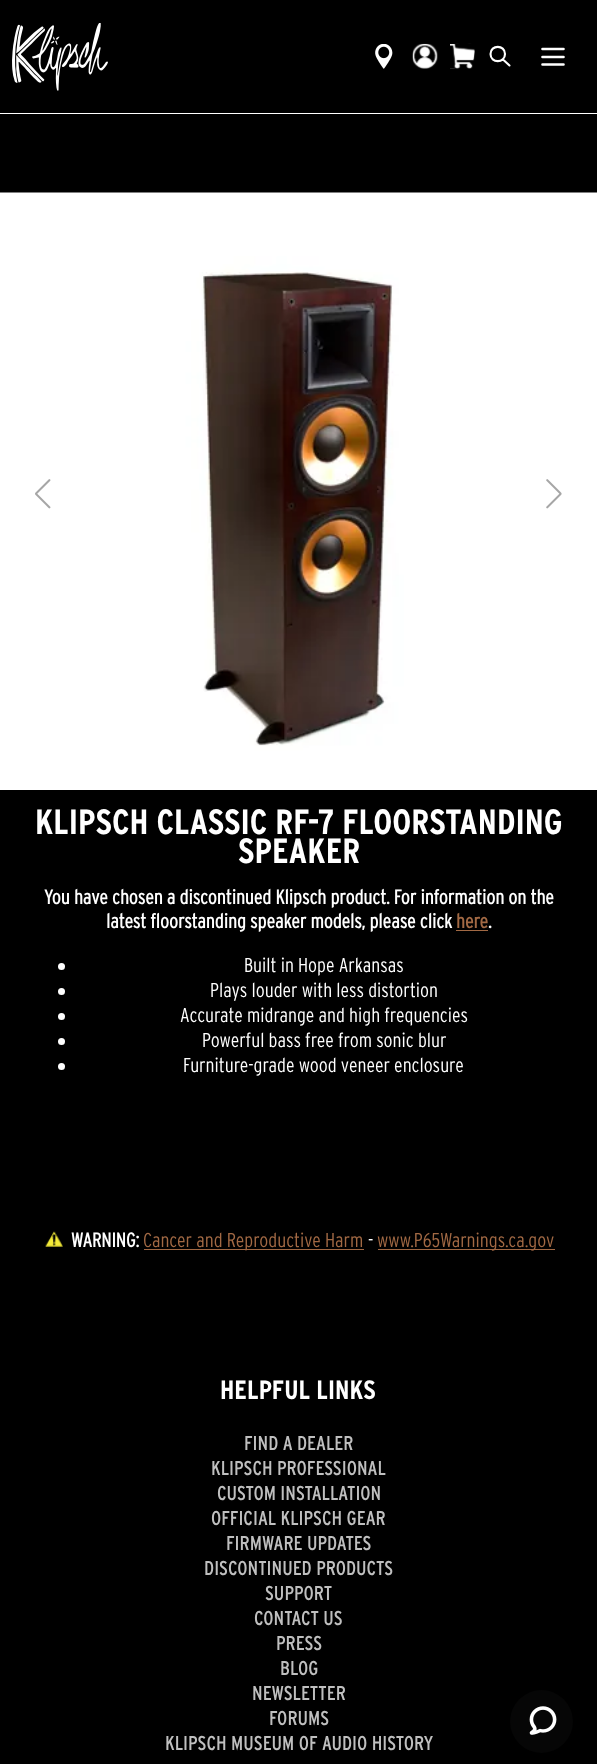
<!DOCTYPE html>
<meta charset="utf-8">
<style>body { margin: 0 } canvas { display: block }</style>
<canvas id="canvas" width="597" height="1764"></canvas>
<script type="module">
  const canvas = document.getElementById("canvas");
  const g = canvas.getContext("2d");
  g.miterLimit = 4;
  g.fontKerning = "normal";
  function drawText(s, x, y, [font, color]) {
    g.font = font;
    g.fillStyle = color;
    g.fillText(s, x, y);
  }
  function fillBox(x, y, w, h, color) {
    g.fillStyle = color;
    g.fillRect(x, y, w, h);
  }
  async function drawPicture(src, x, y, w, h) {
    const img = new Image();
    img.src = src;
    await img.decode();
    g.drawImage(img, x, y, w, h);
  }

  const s1 = ["bold 35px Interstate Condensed", "#FFFFFF"];
  const s2 = ["bold 20px 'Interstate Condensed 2'", "#FFFFFF"];
  const s3 = ["bold 20px 'Interstate Condensed 2'", "#A26944"];
  const s4 = ["300 20px Interstate Condensed", "#FFFFFF"];
  const s5 = ["300 20px Interstate Condensed", "#A26944"];
  const s6 = ["bold 26.5px Interstate Condensed", "#FFFFFF"];
  const s7 = ["20px Interstate Condensed", "#BFBFBF"];

  fillBox(0, 0, 597, 1764, "#000000");
  await drawPicture("pic1.png", 12, 23, 96, 68);
  await drawPicture("pic2.png", 375, 44, 18, 25);
  await drawPicture("pic3.png", 412, 43, 26, 26);
  await drawPicture("pic4.png", 450, 43, 25, 26);
  g.beginPath();
  g.moveTo(509.5, 65.5);
  g.lineTo(503, 59.5);
  g.moveTo(505, 54);
  g.bezierCurveTo(505, 63.5, 490.5, 63.5, 490.5, 54);
  g.bezierCurveTo(490.5, 44.5, 505, 44.5, 505, 54);
  g.closePath();
  g.strokeStyle = "#FFFFFF";
  g.lineWidth = 2.1;
  g.lineCap = "round";
  g.lineJoin = "round";
  g.stroke();
  g.beginPath();
  g.moveTo(542.5, 49);
  g.lineTo(563.5, 49);
  g.moveTo(542.5, 57);
  g.lineTo(563.5, 57);
  g.moveTo(542.5, 64.5);
  g.lineTo(563.5, 64.5);
  g.lineWidth = 2.6;
  g.stroke();
  fillBox(0, 113, 597, 1, "#FFFFFF");
  await drawPicture("pic5.png", 0, 192, 597, 598);
  await drawPicture("pic6.png", 35, 479, 16, 30);
  await drawPicture("pic7.png", 546, 479, 16, 30);
  drawText("KLIPSCH CLASSIC RF-7 FLOORSTANDING", 35, 834, s1);
  drawText("SPEAKER", 238, 863, s1);
  drawText("You have chosen a discontinued Klipsch product. For information on the", 44, 904, s2);
  drawText("latest floorstanding speaker models, please click", 106, 928, s2);
  drawText("here", 456, 928, s3);
  drawText(".", 488, 928, s2);
  fillBox(456, 930, 32, 1, "#A26944");
  g.fillStyle = "#FFFFFF";
  g.beginPath();
  g.arc(61.5, 966.5, 3.5, 0, Math.PI * 2);
  g.fill();
  drawText("Built in Hope Arkansas", 244, 972, s4);
  g.beginPath();
  g.arc(61.5, 991.5, 3.5, 0, Math.PI * 2);
  g.fill();
  drawText("Plays louder with less distortion", 210, 997, s4);
  g.beginPath();
  g.arc(61.5, 1016.5, 3.5, 0, Math.PI * 2);
  g.fill();
  drawText("Accurate midrange and high frequencies", 180, 1022, s4);
  g.beginPath();
  g.arc(61.5, 1041.5, 3.5, 0, Math.PI * 2);
  g.fill();
  drawText("Powerful bass free from sonic blur", 202, 1047, s4);
  g.beginPath();
  g.arc(61.5, 1066.5, 3.5, 0, Math.PI * 2);
  g.fill();
  drawText("Furniture-grade wood veneer enclosure", 183, 1072, s4);
  await drawPicture("pic8.png", 45, 1231, 18, 16);
  drawText("WARNING:", 71, 1247, s2);
  fillBox(144, 1249, 220, 1, "#A26944");
  drawText("Cancer and Reproductive Harm", 143, 1247, s5);
  drawText("-", 368, 1247, s4);
  fillBox(378, 1249, 177, 1, "#A26944");
  drawText("www.P65Warnings.ca.gov", 377, 1247, s5);
  drawText("HELPFUL LINKS", 220, 1399, s6);
  drawText("FIND A DEALER", 244, 1450, s7);
  drawText("KLIPSCH PROFESSIONAL", 211, 1475, s7);
  drawText("CUSTOM INSTALLATION", 217, 1500, s7);
  drawText("OFFICIAL KLIPSCH GEAR", 211, 1525, s7);
  drawText("FIRMWARE UPDATES", 226, 1550, s7);
  drawText("DISCONTINUED PRODUCTS", 204, 1575, s7);
  drawText("SUPPORT", 265, 1600, s7);
  drawText("CONTACT US", 254, 1625, s7);
  drawText("PRESS", 276, 1650, s7);
  drawText("BLOG", 280, 1675, s7);
  drawText("NEWSLETTER", 252, 1700, s7);
  drawText("FORUMS", 269, 1725, s7);
  drawText("KLIPSCH MUSEUM OF AUDIO HISTORY", 165, 1750, s7);
  g.fillStyle = "#060606";
  g.beginPath();
  g.arc(541.5, 1721.5, 31.5, 0, Math.PI * 2);
  g.fill();
  await drawPicture("pic9.png", 529, 1706, 28, 29);
</script>
